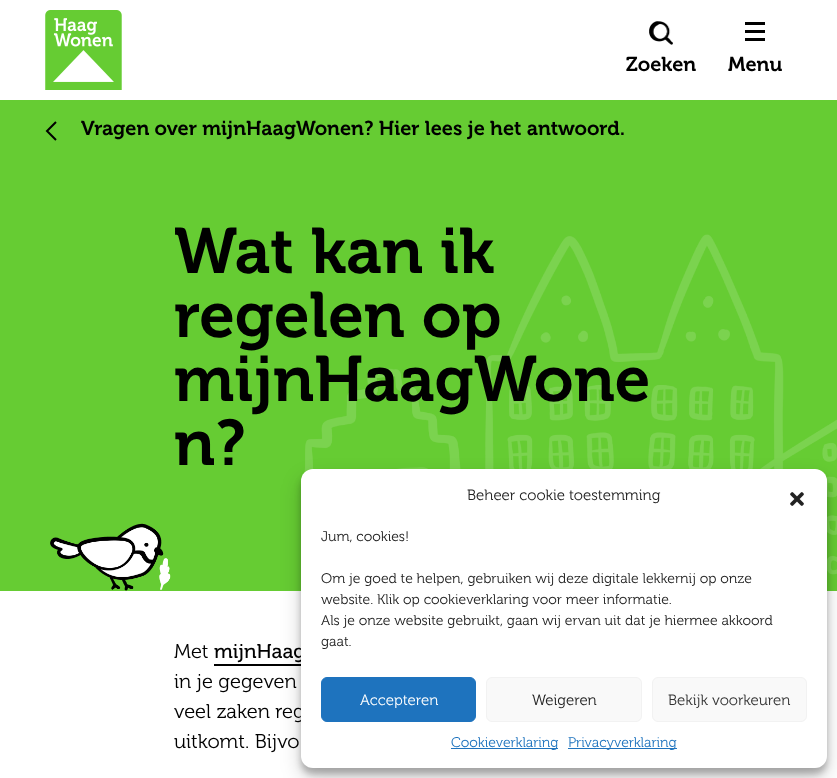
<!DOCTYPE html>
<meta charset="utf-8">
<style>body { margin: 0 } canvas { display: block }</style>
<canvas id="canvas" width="837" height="778"></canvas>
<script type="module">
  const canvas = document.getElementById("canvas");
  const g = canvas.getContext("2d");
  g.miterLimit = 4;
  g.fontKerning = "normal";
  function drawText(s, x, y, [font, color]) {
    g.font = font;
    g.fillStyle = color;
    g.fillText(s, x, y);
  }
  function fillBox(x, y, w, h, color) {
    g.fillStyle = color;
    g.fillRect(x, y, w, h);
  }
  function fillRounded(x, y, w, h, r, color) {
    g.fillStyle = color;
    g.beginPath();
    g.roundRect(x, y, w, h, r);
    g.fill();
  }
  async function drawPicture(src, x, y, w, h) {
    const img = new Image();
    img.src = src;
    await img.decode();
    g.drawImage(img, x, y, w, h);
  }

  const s1 = ["600 20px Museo", "#000000"];
  const s2 = ["600 64px Museo", "#000000"];
  const s3 = ["300 20px Museo", "#000000"];
  const s4 = ["20px Museo", "#000000"];
  const s5 = ["300 15px Museo", "#222222"];
  const s6 = ["300 14px Museo", "#222222"];
  const s7 = ["300 15px Museo", "#FFFFFF"];
  const s8 = ["300 15px Museo", "#333333"];
  const s9 = ["300 14px Museo", "#1E73BE"];

  fillBox(0, 0, 837, 778, "#FFFFFF");
  await drawPicture("pic1.png", 45, 10, 77, 80);
  await drawPicture("pic2.png", 649, 21, 24, 24);
  drawText("Zoeken", 626, 71, s1);
  g.beginPath();
  g.moveTo(765, 23.5);
  g.lineTo(745, 23.5);
  g.moveTo(765, 31.5);
  g.lineTo(745, 31.5);
  g.moveTo(765, 39.5);
  g.lineTo(745, 39.5);
  g.strokeStyle = "#000000";
  g.lineWidth = 3;
  g.stroke();
  drawText("Menu", 728, 71, s1);
  fillBox(0, 100, 837, 491, "#66CC33");
  g.beginPath();
  g.moveTo(56, 122);
  g.lineTo(47, 131);
  g.lineTo(56, 140);
  g.lineWidth = 2;
  g.stroke();
  drawText("Vragen over mijnHaagWonen? Hier lees je het antwoord.", 81, 135, s1);
  g.beginPath();
  g.moveTo(56, 122);
  g.lineTo(47, 131);
  g.lineTo(56, 140);
  g.lineWidth = 1;
  g.stroke();
  await drawPicture("pic3.png", 304, 234, 533, 341);
  drawText("Wat kan ik", 174, 273, s2);
  drawText("regelen op", 174, 337, s2);
  drawText("mijnHaagWone", 174, 401, s2);
  drawText("n?", 174, 465, s2);
  await drawPicture("pic4.png", 50, 523, 121, 68);
  drawText("Met", 174, 658, s3);
  drawText("mijnHaag", 214, 658, s4);
  fillBox(214, 664, 87, 2, "#000000");
  drawText("in je gegeven", 174, 688, s3);
  drawText("veel zaken reg", 174, 718, s3);
  drawText("uitkomt. Bijvo", 174, 748, s3);
  g.fillStyle = "rgba(0, 0, 0, 0.23)";
  g.filter = "blur(3px)";
  g.beginPath();
  g.roundRect(301, 475, 526, 299, 12);
  g.fill();
  g.filter = "none";
  g.fillStyle = "rgba(0, 0, 0, 0.19)";
  g.filter = "blur(10px)";
  g.beginPath();
  g.roundRect(301, 479, 526, 299, 12);
  g.fill();
  g.filter = "none";
  fillRounded(301, 469, 526, 299, 12, "#FFFFFF");
  drawText("Beheer cookie toestemming", 467, 500, s5);
  await drawPicture("pic5.png", 790, 492, 14, 14);
  drawText("Jum, cookies!", 321, 541, s6);
  drawText("Om je goed te helpen, gebruiken wij deze digitale lekkernij op onze", 321, 583, s6);
  drawText("website. Klik op cookieverklaring voor meer informatie.", 321, 604, s6);
  drawText("Als je onze website gebruikt, gaan wij ervan uit dat je hiermee akkoord", 321, 625, s6);
  drawText("gaat.", 321, 646, s6);
  g.fillStyle = "#1E73BE";
  g.beginPath();
  g.roundRect(321.5, 677.5, 154, 44, 5.5);
  g.fill();
  g.strokeStyle = "#1E73BE";
  g.stroke();
  drawText("Accepteren", 360, 705, s7);
  g.fillStyle = "#F9F9F9";
  g.beginPath();
  g.roundRect(486.5, 677.5, 155, 44, 5.5);
  g.fill();
  g.strokeStyle = "#F2F2F2";
  g.stroke();
  drawText("Weigeren", 532, 705, s5);
  g.fillStyle = "#F9F9F9";
  g.beginPath();
  g.roundRect(652.5, 677.5, 154, 44, 5.5);
  g.fill();
  g.stroke();
  drawText("Bekijk voorkeuren", 668, 705, s8);
  fillBox(451, 748, 107, 1, "#1E73BE");
  drawText("Cookieverklaring", 451, 747, s9);
  fillBox(568, 748, 109, 1, "#1E73BE");
  drawText("Privacyverklaring", 568, 747, s9);
</script>
